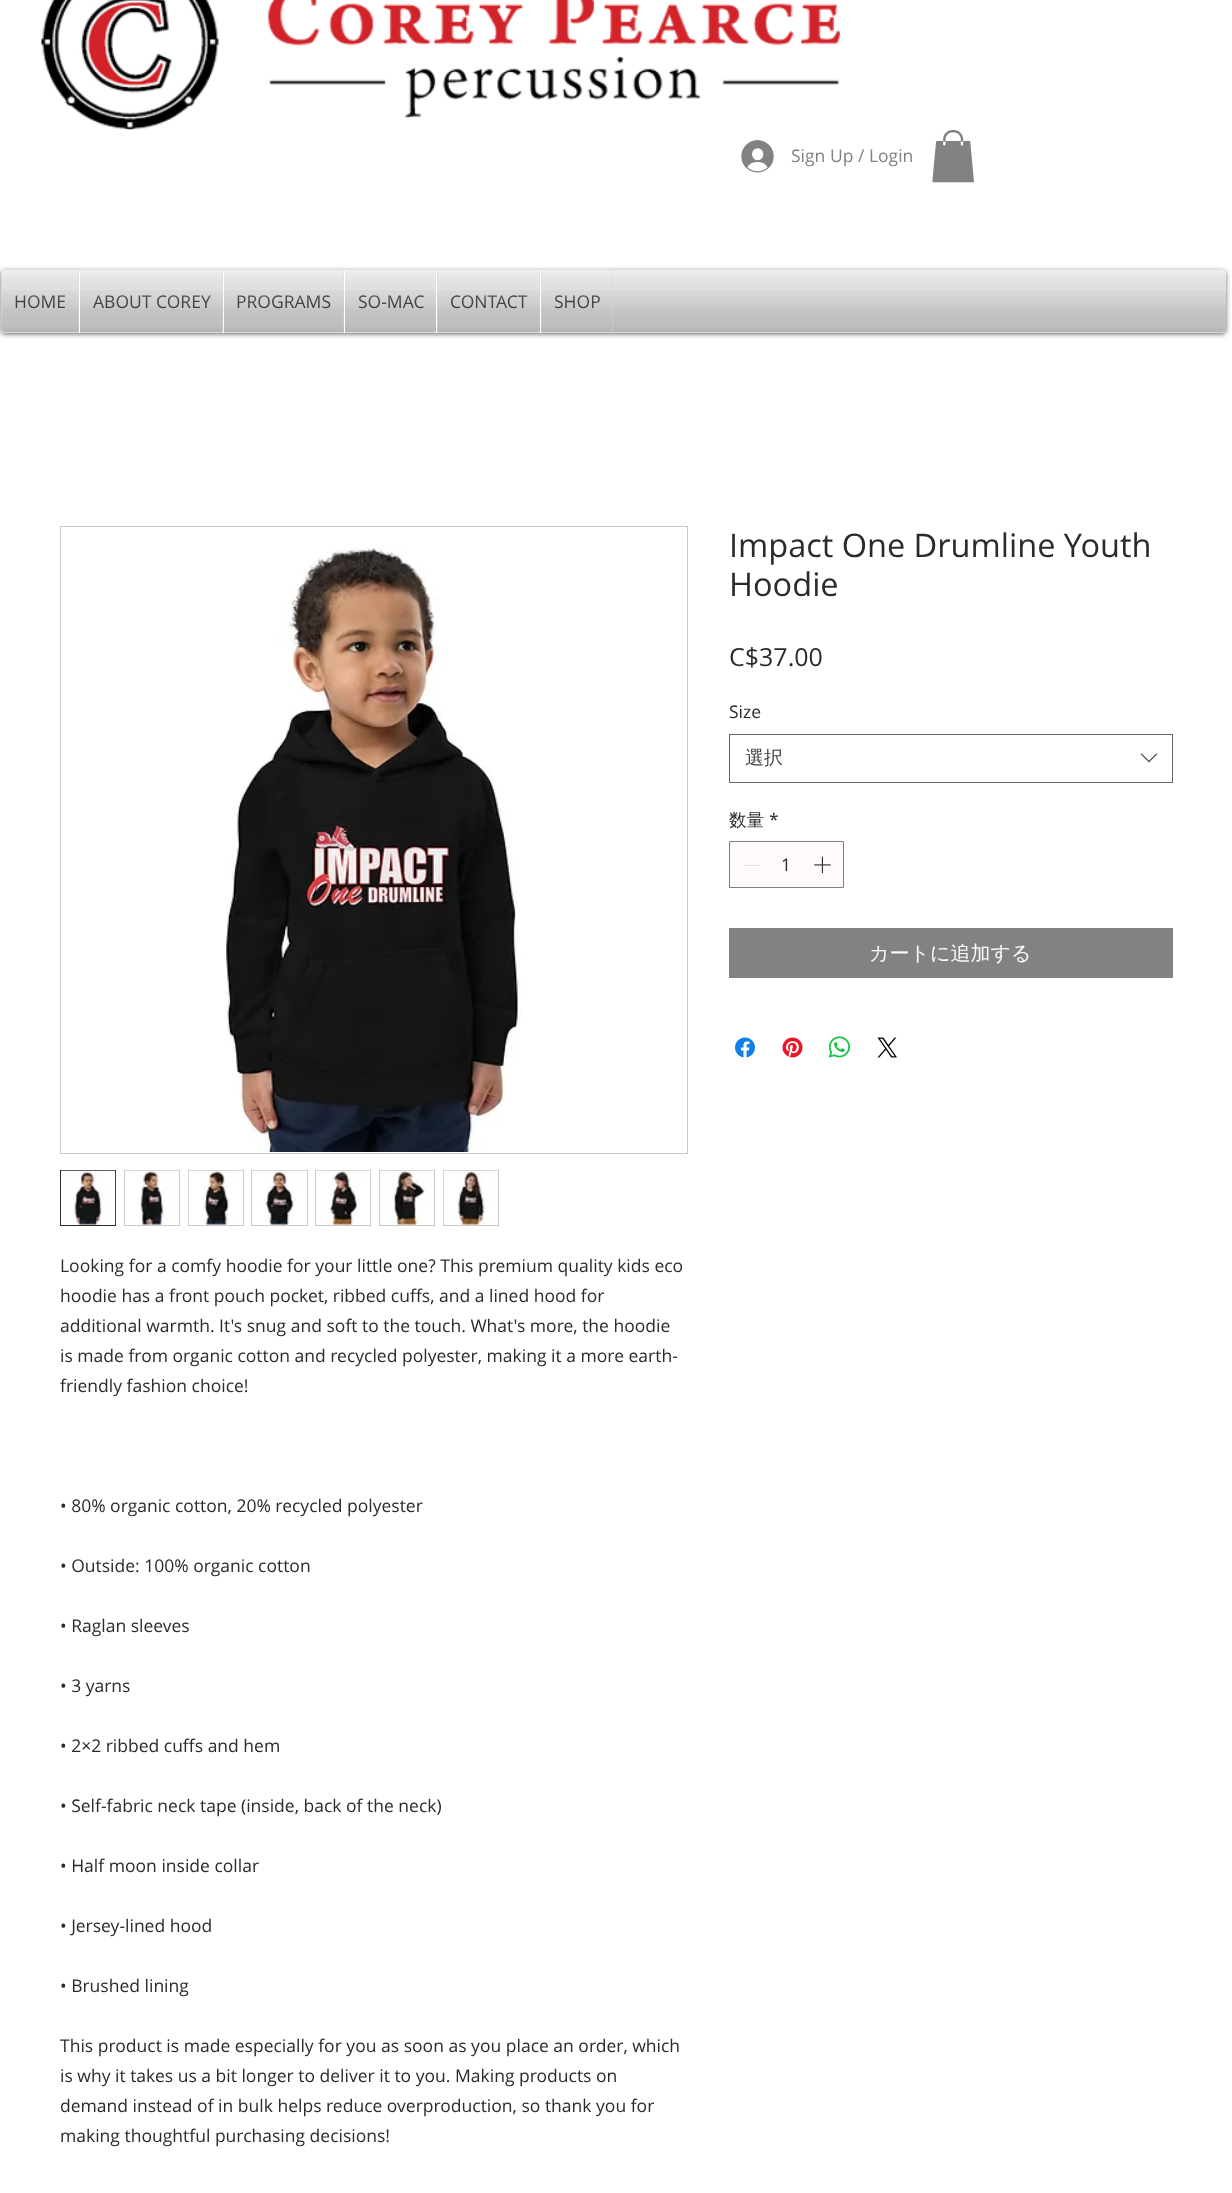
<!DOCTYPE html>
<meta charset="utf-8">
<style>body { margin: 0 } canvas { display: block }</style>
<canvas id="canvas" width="1232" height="2193"></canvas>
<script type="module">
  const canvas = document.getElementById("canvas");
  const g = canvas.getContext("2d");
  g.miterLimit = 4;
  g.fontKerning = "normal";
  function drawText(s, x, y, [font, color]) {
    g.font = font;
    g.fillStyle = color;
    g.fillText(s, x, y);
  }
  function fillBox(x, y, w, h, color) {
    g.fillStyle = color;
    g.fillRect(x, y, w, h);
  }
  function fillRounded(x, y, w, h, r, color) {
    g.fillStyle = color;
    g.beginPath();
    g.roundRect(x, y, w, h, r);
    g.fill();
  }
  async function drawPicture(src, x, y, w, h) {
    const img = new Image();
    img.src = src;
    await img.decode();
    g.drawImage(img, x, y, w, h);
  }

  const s1 = ["17.5px Open Sans", "#828282"];
  const s2 = ["17.5px Open Sans", "#2B2B2B"];
  const s3 = ["32.5px Open Sans", "#2B2B2B"];
  const s4 = ["25px Open Sans", "#2B2B2B"];
  const s5 = ["500 19px WenQuanYi Zen Hei", "#444444"];
  const s6 = ["500 17.5px WenQuanYi Zen Hei", "#2B2B2B"];
  const s7 = ["500 20px WenQuanYi Zen Hei", "#FFFAFA"];

  fillBox(0, 0, 1232, 2193, "#FFFFFF");
  await drawPicture("pic1.png", 41, 0, 799, 130);
  await drawPicture("pic2.png", 741, 140, 33, 33);
  drawText("Sign Up / Login", 791, 162, s1);
  await drawPicture("pic3.png", 932, 130, 42, 53);
  g.fillStyle = "rgba(0, 0, 0, 0.6)";
  g.filter = "blur(2.5px)";
  g.beginPath();
  g.roundRect(1, 271, 1225, 63, 4);
  g.fill();
  g.filter = "none";
  fillRounded(1, 270, 1225, 63, 4, "#D5D5D5");
  await drawPicture("pic4.png", 1, 269, 1225, 40);
  await drawPicture("pic5.png", 1, 290, 1225, 42);
  g.beginPath();
  g.roundRect(1, 270, 78, 63, [4, 0, 0, 4]);
  g.fill();
  drawText("HOME", 14, 308, s2);
  await drawPicture("pic6.png", 1, 270, 78, 39);
  await drawPicture("pic7.png", 1, 290, 78, 42);
  fillBox(80, 270, 143, 62, "#D5D5D5");
  fillBox(79, 270, 1, 63, "#FFFFFF");
  drawText("ABOUT COREY", 93, 308, s2);
  await drawPicture("pic8.png", 80, 269, 143, 40);
  await drawPicture("pic9.png", 80, 290, 143, 42);
  fillBox(224, 270, 120, 62, "#D5D5D5");
  fillBox(223, 270, 1, 63, "#FFFFFF");
  drawText("PROGRAMS", 236, 308, s2);
  await drawPicture("pic10.png", 224, 269, 120, 40);
  await drawPicture("pic11.png", 223, 290, 121, 42);
  fillBox(345, 270, 91, 62, "#D5D5D5");
  fillBox(344, 270, 1, 63, "#FFFFFF");
  drawText("SO-MAC", 358, 308, s2);
  await drawPicture("pic12.png", 345, 269, 91, 40);
  await drawPicture("pic13.png", 345, 290, 91, 42);
  fillBox(437, 270, 103, 62, "#D5D5D5");
  fillBox(436, 270, 1, 63, "#FFFFFF");
  drawText("CONTACT", 450, 308, s2);
  await drawPicture("pic14.png", 437, 269, 103, 40);
  await drawPicture("pic15.png", 437, 290, 103, 42);
  fillBox(541, 270, 72, 62, "#D5D5D5");
  fillBox(540, 270, 1, 63, "#FFFFFF");
  drawText("SHOP", 554, 308, s2);
  await drawPicture("pic16.png", 541, 269, 72, 40);
  await drawPicture("pic17.png", 541, 290, 72, 42);
  drawText("Impact One Drumline Youth", 729, 557, s3);
  drawText("Hoodie", 729, 596, s3);
  drawText("C$37.00", 729, 666, s4);
  drawText("Size", 729, 718, s2);
  g.strokeStyle = "#666666";
  g.strokeRect(729.5, 734.5, 443, 48);
  drawText("選択", 745, 764, s5);
  await drawPicture("pic18.png", 1140, 753, 18, 10);
  drawText("数量", 729, 826, s6);
  drawText("*", 769, 826, s2);
  g.fillStyle = "#FFFAFA";
  g.beginPath();
  g.rect(729.5, 841.5, 114, 46);
  g.fill();
  g.strokeStyle = "#807E7E";
  g.stroke();
  fillBox(743, 865, 17, 1, "#E3E1E1");
  drawText("1", 781, 871, s2);
  await drawPicture("pic19.png", 814, 856, 17, 18);
  fillBox(729, 928, 444, 50, "#828282");
  drawText("カートに追加する", 869, 960, s7);
  await drawPicture("pic20.png", 735, 1037, 20, 21);
  await drawPicture("pic21.png", 782, 1037, 21, 21);
  await drawPicture("pic22.png", 828, 1036, 22, 22);
  await drawPicture("pic23.png", 877, 1037, 20, 21);
  g.strokeStyle = "#CCC8C8";
  g.strokeRect(60.5, 526.5, 627, 627);
  await drawPicture("pic24.png", 226, 547, 295, 605);
  g.strokeStyle = "#2B2B2B";
  g.strokeRect(60.5, 1170.5, 55, 55);
  await drawPicture("pic25.png", 61, 1170, 55, 55);
  g.strokeStyle = "#CCC8C8";
  g.strokeRect(124.5, 1170.5, 55, 55);
  await drawPicture("pic26.png", 125, 1170, 54, 55);
  g.strokeRect(188.5, 1170.5, 55, 55);
  await drawPicture("pic27.png", 188, 1170, 55, 55);
  g.strokeRect(251.5, 1170.5, 56, 55);
  await drawPicture("pic28.png", 252, 1170, 54, 55);
  g.strokeRect(315.5, 1170.5, 55, 55);
  await drawPicture("pic29.png", 316, 1170, 55, 55);
  g.strokeRect(379.5, 1170.5, 55, 55);
  await drawPicture("pic30.png", 380, 1170, 54, 55);
  g.strokeRect(443.5, 1170.5, 55, 55);
  await drawPicture("pic31.png", 443, 1170, 55, 55);
  drawText("Looking for a comfy hoodie for your little one? This premium quality kids eco", 60, 1272, s2);
  drawText("hoodie has a front pouch pocket, ribbed cuffs, and a lined hood for", 60, 1302, s2);
  drawText("additional warmth. It's snug and soft to the touch. What's more, the hoodie", 60, 1332, s2);
  drawText("is made from organic cotton and recycled polyester, making it a more earth-", 60, 1362, s2);
  drawText("friendly fashion choice!", 60, 1392, s2);
  drawText("• 80% organic cotton, 20% recycled polyester", 60, 1512, s2);
  drawText("• Outside: 100% organic cotton", 60, 1572, s2);
  drawText("• Raglan sleeves", 60, 1632, s2);
  drawText("• 3 yarns", 60, 1692, s2);
  drawText("• 2×2 ribbed cuffs and hem", 60, 1752, s2);
  drawText("• Self-fabric neck tape (inside, back of the neck)", 60, 1812, s2);
  drawText("• Half moon inside collar", 60, 1872, s2);
  drawText("• Jersey-lined hood", 60, 1932, s2);
  drawText("• Brushed lining", 60, 1992, s2);
  drawText("This product is made especially for you as soon as you place an order, which", 60, 2052, s2);
  drawText("is why it takes us a bit longer to deliver it to you. Making products on", 60, 2082, s2);
  drawText("demand instead of in bulk helps reduce overproduction, so thank you for", 60, 2112, s2);
  drawText("making thoughtful purchasing decisions!", 60, 2142, s2);
</script>
